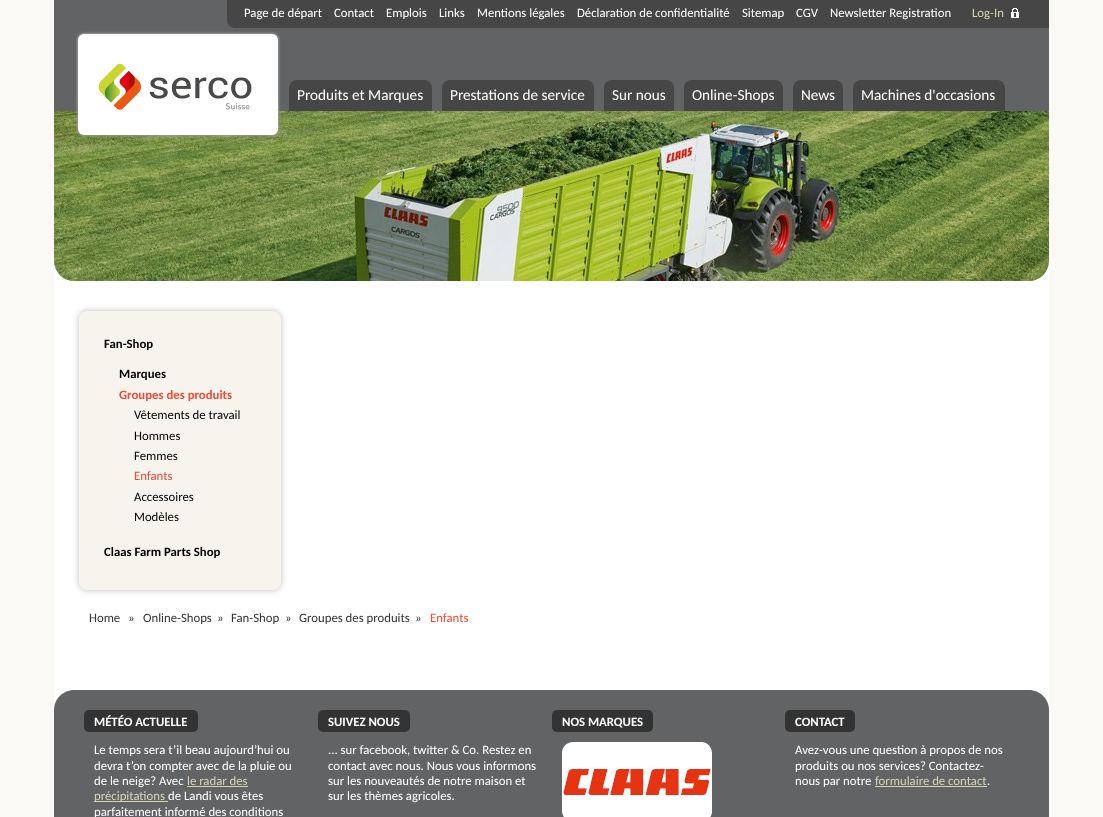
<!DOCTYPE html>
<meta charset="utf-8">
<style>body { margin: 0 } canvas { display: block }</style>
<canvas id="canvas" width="1103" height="817"></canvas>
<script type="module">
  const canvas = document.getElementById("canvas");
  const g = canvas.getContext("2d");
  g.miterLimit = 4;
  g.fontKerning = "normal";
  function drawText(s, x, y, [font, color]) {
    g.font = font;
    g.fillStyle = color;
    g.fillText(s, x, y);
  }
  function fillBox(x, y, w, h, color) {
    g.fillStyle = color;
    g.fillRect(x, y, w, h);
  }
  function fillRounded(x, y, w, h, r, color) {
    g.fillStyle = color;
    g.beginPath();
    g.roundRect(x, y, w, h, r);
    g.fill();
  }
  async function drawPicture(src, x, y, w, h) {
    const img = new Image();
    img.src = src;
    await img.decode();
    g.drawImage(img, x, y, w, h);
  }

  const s1 = ["12.75px Carlito", "#FFFFFF"];
  const s2 = ["12.75px Carlito", "#D9D3B4"];
  const s3 = ["15.25px Carlito", "#FFFFFF"];
  const s4 = ["bold 12.75px Carlito", "#000000"];
  const s5 = ["bold 12.75px Carlito", "#EF4A37"];
  const s6 = ["12.75px Carlito", "#000000"];
  const s7 = ["12.75px Carlito", "#EF4A37"];
  const s8 = ["12.75px Carlito", "#333333"];
  const s9 = ["bold 12.75px Carlito", "#FFFFFF"];

  fillBox(0, 0, 1103, 817, "#FAF9F6");
  fillBox(54, 0, 995, 111, "#626365");
  g.fillStyle = "#464646";
  g.beginPath();
  g.roundRect(227, 0, 822, 28, [0, 0, 0, 8]);
  g.fill();
  drawText("Page de départ", 244, 17, s1);
  drawText("Contact", 334, 17, s1);
  drawText("Emplois", 386, 17, s1);
  drawText("Links", 439, 17, s1);
  drawText("Mentions légales", 477, 17, s1);
  drawText("Déclaration de confidentialité", 577, 17, s1);
  drawText("Sitemap", 742, 17, s1);
  drawText("CGV", 796, 17, s1);
  drawText("Newsletter Registration", 830, 17, s1);
  await drawPicture("pic1.png", 1011, 8, 8, 10);
  drawText("Log-In", 972, 17, s2);
  fillBox(54, 261, 995, 449, "#FFFFFF");
  await drawPicture("pic3.png", 54, 111, 995, 170);
  g.fillStyle = "#999999";
  g.filter = "blur(1px)";
  g.beginPath();
  g.roundRect(77, 33, 202, 103, 7);
  g.fill();
  g.filter = "none";
  fillRounded(78, 34, 200, 101, 6, "#FFFFFF");
  await drawPicture("pic2.png", 98, 63, 154, 47);
  g.fillStyle = "#464646";
  g.beginPath();
  g.roundRect(289, 80, 143, 31, [8, 8, 0, 0]);
  g.fill();
  drawText("Produits et Marques", 297, 100, s3);
  g.fillStyle = "#464646";
  g.beginPath();
  g.roundRect(442, 80, 152, 31, [8, 8, 0, 0]);
  g.fill();
  drawText("Prestations de service", 450, 100, s3);
  g.fillStyle = "#464646";
  g.beginPath();
  g.roundRect(604, 80, 70, 31, [8, 8, 0, 0]);
  g.fill();
  drawText("Sur nous", 612, 100, s3);
  g.fillStyle = "#464646";
  g.beginPath();
  g.roundRect(684, 80, 99, 31, [8, 8, 0, 0]);
  g.fill();
  drawText("Online-Shops", 692, 100, s3);
  g.fillStyle = "#464646";
  g.beginPath();
  g.roundRect(793, 80, 50, 31, [8, 8, 0, 0]);
  g.fill();
  drawText("News", 801, 100, s3);
  g.fillStyle = "#464646";
  g.beginPath();
  g.roundRect(853, 80, 152, 31, [8, 8, 0, 0]);
  g.fill();
  drawText("Machines d'occasions", 861, 100, s3);
  g.fillStyle = "rgba(0, 0, 0, 0.25)";
  g.filter = "blur(3px)";
  g.beginPath();
  g.roundRect(79, 311, 202, 279, 8);
  g.fill();
  g.filter = "none";
  fillRounded(79, 311, 202, 279, 8, "#F6F4ED");
  drawText("Fan-Shop", 104, 348, s4);
  drawText("Marques", 119, 378, s4);
  drawText("Groupes des produits", 119, 399, s5);
  drawText("Vêtements de travail", 134, 419, s6);
  drawText("Hommes", 134, 440, s6);
  drawText("Femmes", 134, 460, s6);
  drawText("Enfants", 134, 480, s7);
  drawText("Accessoires", 134, 501, s6);
  drawText("Modèles", 134, 521, s6);
  drawText("Claas Farm Parts Shop", 104, 556, s4);
  drawText("Home", 89, 622, s8);
  drawText("»", 128, 622, s8);
  drawText("Online-Shops", 143, 622, s8);
  drawText("»", 217, 622, s8);
  drawText("Fan-Shop", 231, 622, s8);
  drawText("»", 285, 622, s8);
  drawText("Groupes des produits", 299, 622, s8);
  drawText("»", 415, 622, s8);
  drawText("Enfants", 430, 622, s7);
  g.fillStyle = "#626365";
  g.beginPath();
  g.moveTo(74, 690);
  g.lineTo(1029, 690);
  g.bezierCurveTo(1040, 690, 1049, 699, 1049, 710);
  g.lineTo(1049, 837);
  g.lineTo(54, 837);
  g.lineTo(54, 710);
  g.bezierCurveTo(54, 699, 63, 690, 74, 690);
  g.closePath();
  g.fill();
  fillRounded(84, 710, 114, 22, 5, "#333333");
  drawText("MÉTÉO ACTUELLE", 94, 726, s9);
  drawText("Le temps sera t’il beau aujourd’hui ou", 94, 754, s1);
  drawText("devra t’on compter avec de la pluie ou", 94, 770, s1);
  drawText("de le neige? Avec", 94, 785, s1);
  drawText("le radar des", 187, 785, s2);
  fillBox(187, 786, 61, 1, "#D9D3B4");
  fillBox(94, 801, 74, 1, "#D9D3B4");
  drawText("précipitations", 94, 800, s2);
  drawText("de Landi vous êtes", 168, 800, s1);
  drawText("parfaitement informé des conditions", 94, 816, s1);
  fillRounded(318, 710, 92, 22, 5, "#333333");
  drawText("SUIVEZ NOUS", 328, 726, s9);
  drawText("... sur facebook, twitter & Co. Restez en", 328, 754, s1);
  drawText("contact avec nous. Nous vous informons", 328, 770, s1);
  drawText("sur les nouveautés de notre maison et", 328, 785, s1);
  drawText("sur les thèmes agricoles.", 328, 800, s1);
  fillRounded(552, 710, 101, 22, 5, "#333333");
  drawText("NOS MARQUES", 562, 726, s9);
  await drawPicture("pic4.png", 562, 742, 150, 75);
  fillRounded(785, 710, 70, 22, 5, "#333333");
  drawText("CONTACT", 795, 726, s9);
  drawText("Avez-vous une question à propos de nos", 795, 754, s1);
  drawText("produits ou nos services? Contactez-", 795, 770, s1);
  drawText("nous par notre", 795, 785, s1);
  drawText("formulaire de contact", 875, 785, s2);
  fillBox(875, 786, 112, 1, "#D9D3B4");
  drawText(".", 987, 785, s1);
</script>
